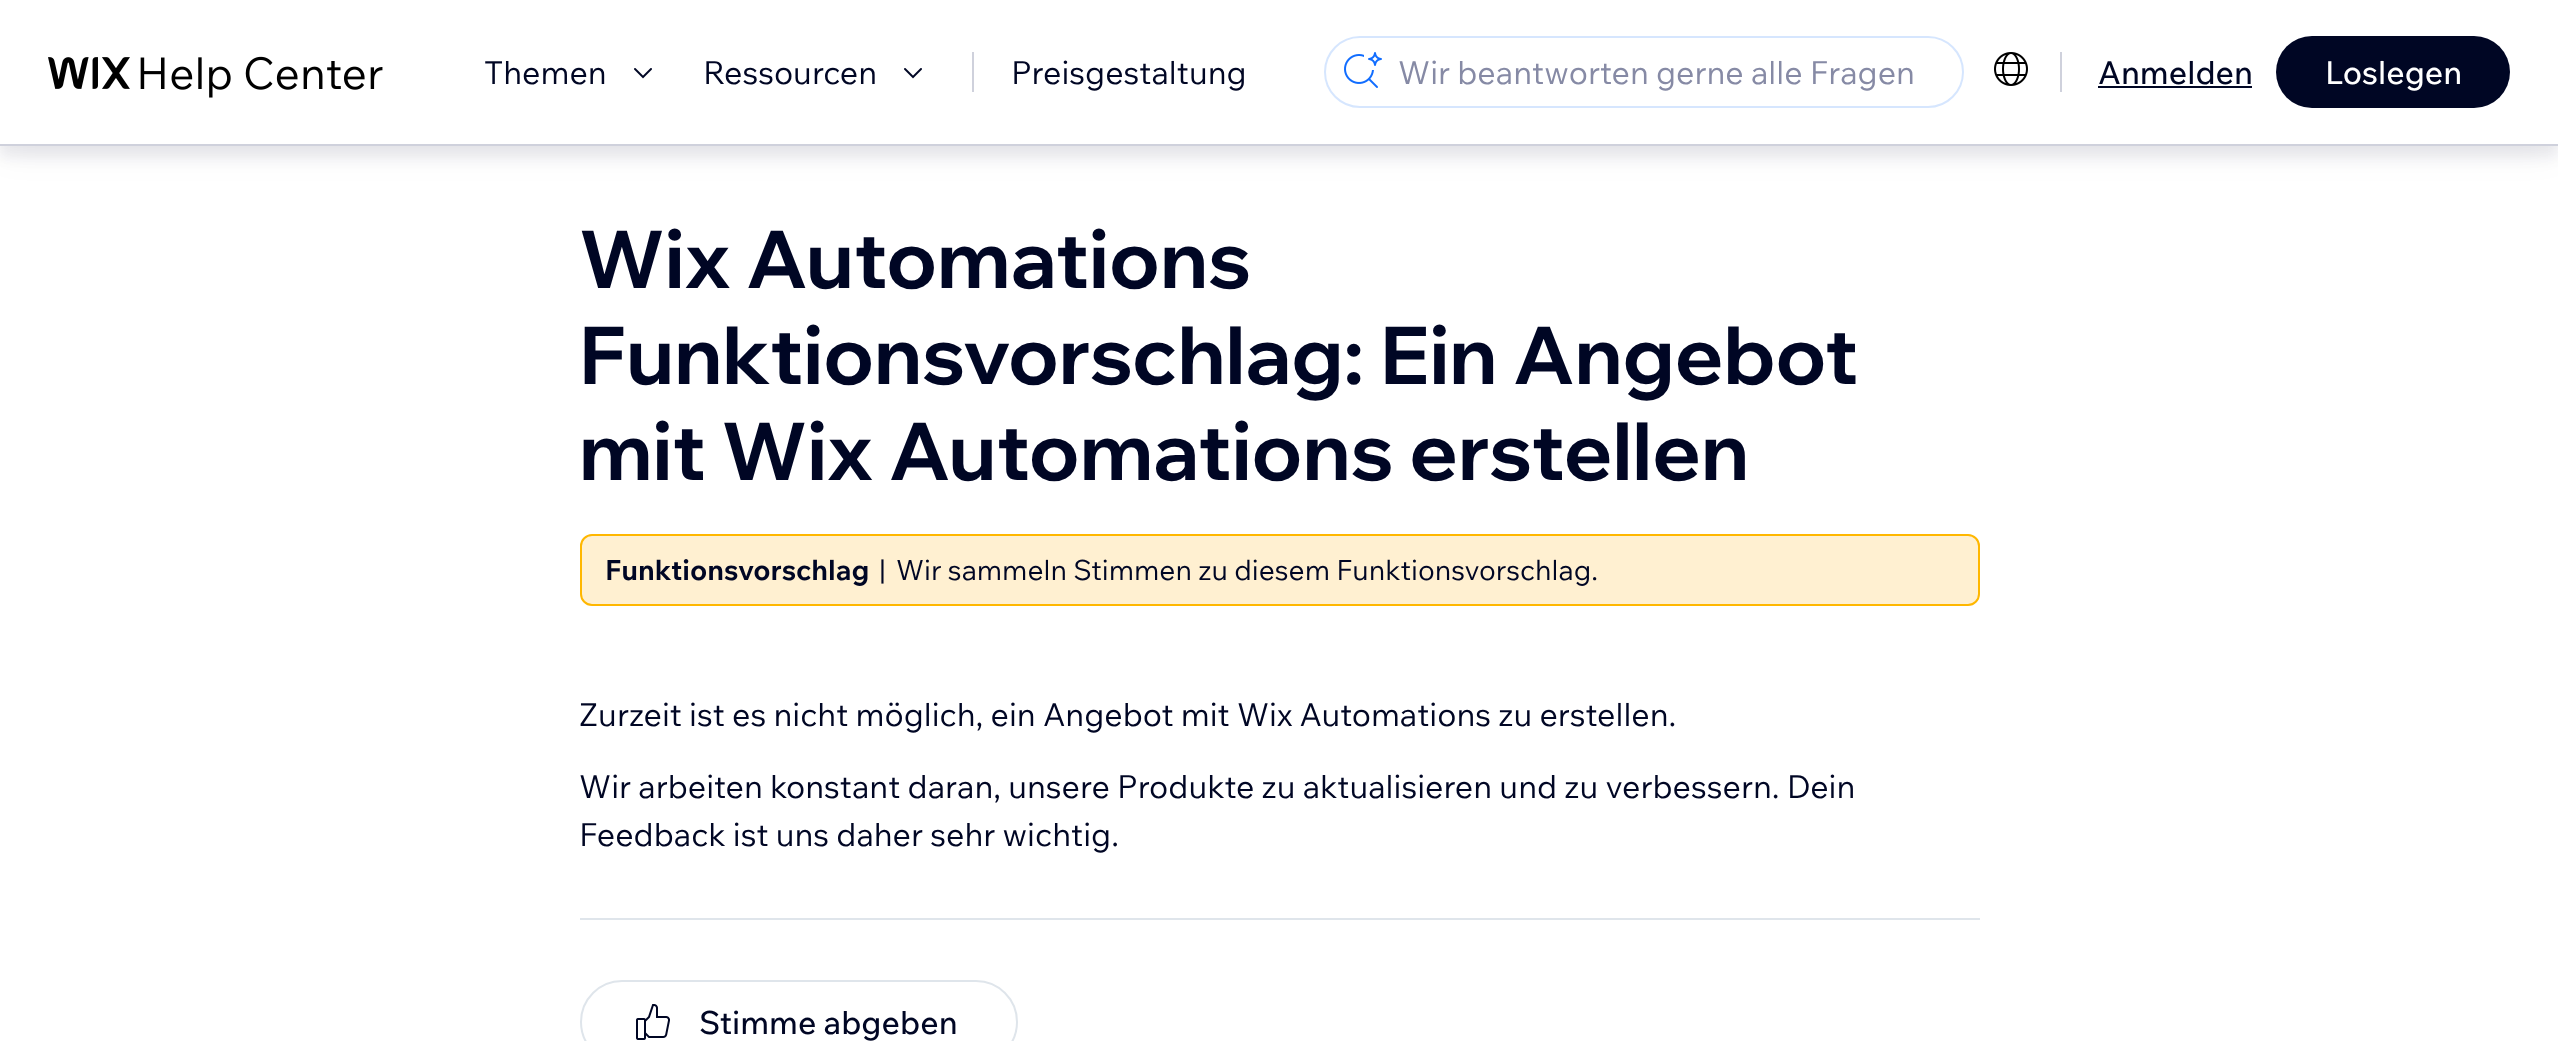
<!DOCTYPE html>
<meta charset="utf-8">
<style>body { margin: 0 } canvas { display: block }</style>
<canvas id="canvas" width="2558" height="1041"></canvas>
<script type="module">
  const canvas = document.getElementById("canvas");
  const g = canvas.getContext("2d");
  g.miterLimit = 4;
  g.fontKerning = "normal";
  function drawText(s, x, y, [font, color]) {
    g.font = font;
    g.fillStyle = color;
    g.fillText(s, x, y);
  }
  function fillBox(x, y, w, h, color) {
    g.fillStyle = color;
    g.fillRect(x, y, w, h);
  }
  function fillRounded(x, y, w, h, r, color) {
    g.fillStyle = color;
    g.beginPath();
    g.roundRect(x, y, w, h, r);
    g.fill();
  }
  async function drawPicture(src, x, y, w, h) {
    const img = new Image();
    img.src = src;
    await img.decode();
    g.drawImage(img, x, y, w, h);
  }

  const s1 = ["32px Wix Madefor Text", "#000624"];
  const s2 = ["32px Wix Madefor Text", "#868AA5"];
  const s3 = ["500 32px Wix Madefor Text", "#000624"];
  const s4 = ["500 32px Wix Madefor Text", "#FFFFFF"];
  const s5 = ["bold 80px Wix Madefor Display", "#000624"];
  const s6 = ["bold 28px Wix Madefor Text", "#000624"];
  const s7 = ["28px Wix Madefor Text", "#000624"];

  fillBox(0, 0, 2558, 1041, "#FFFFFF");
  g.fillStyle = "rgba(0, 6, 36, 0.1)";
  g.filter = "blur(18px)";
  g.beginPath();
  g.rect(0, 0, 2558, 146);
  g.fill();
  g.filter = "none";
  g.fillStyle = "rgba(0, 6, 36, 0.05)";
  g.filter = "blur(6px)";
  g.beginPath();
  g.rect(0, 12, 2558, 146);
  g.fill();
  g.filter = "none";
  fillBox(0, 0, 2558, 144, "#FFFFFF");
  fillBox(0, 144, 2558, 2, "#CFD1DC");
  await drawPicture("pic1.png", 48, 56, 335, 42);
  drawText("Themen", 484, 84, s1);
  await drawPicture("pic2.png", 634, 68, 18, 11);
  drawText("Ressourcen", 703, 84, s1);
  await drawPicture("pic2.png", 904, 68, 18, 11);
  fillBox(972, 52, 2, 40, "#CFD1DC");
  drawText("Preisgestaltung", 1011, 84, s1);
  g.beginPath();
  g.roundRect(1325, 37, 638, 70, 35);
  g.strokeStyle = "#D6E6FE";
  g.lineWidth = 2;
  g.stroke();
  await drawPicture("pic3.png", 1344, 52, 38, 36);
  drawText("Wir beantworten gerne alle Fragen", 1398, 84, s2);
  await drawPicture("pic4.png", 1994, 52, 34, 34);
  fillBox(2060, 52, 2, 40, "#CFD1DC");
  drawText("Anmelden", 2098, 84, s3);
  fillBox(2098, 86, 154, 2, "#000624");
  fillRounded(2276, 36, 234, 72, 36, "#000624");
  drawText("Loslegen", 2325, 84, s4);
  drawText("Wix Automations", 579, 288, s5);
  drawText("Funktionsvorschlag: Ein Angebot", 579, 384, s5);
  drawText("mit Wix Automations erstellen", 579, 480, s5);
  g.fillStyle = "#FFF0D1";
  g.beginPath();
  g.roundRect(581, 535, 1398, 70, 11);
  g.fill();
  g.strokeStyle = "#FFB700";
  g.stroke();
  drawText("Funktionsvorschlag", 605, 580, s6);
  drawText("|", 879, 580, s7);
  drawText("Wir sammeln Stimmen zu diesem Funktionsvorschlag.", 896, 580, s7);
  drawText("Zurzeit ist es nicht möglich, ein Angebot mit Wix Automations zu erstellen.", 579, 726, s1);
  drawText("Wir arbeiten konstant daran, unsere Produkte zu aktualisieren und zu verbessern. Dein", 579, 798, s1);
  drawText("Feedback ist uns daher sehr wichtig.", 579, 846, s1);
  fillBox(580, 918, 1400, 2, "#DFE5EB");
  g.beginPath();
  g.roundRect(581, 981, 436, 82, 41);
  g.strokeStyle = "#DFE5EB";
  g.stroke();
  await drawPicture("pic5.png", 636, 1004, 34, 36);
  drawText("Stimme abgeben", 699, 1034, s3);
</script>
